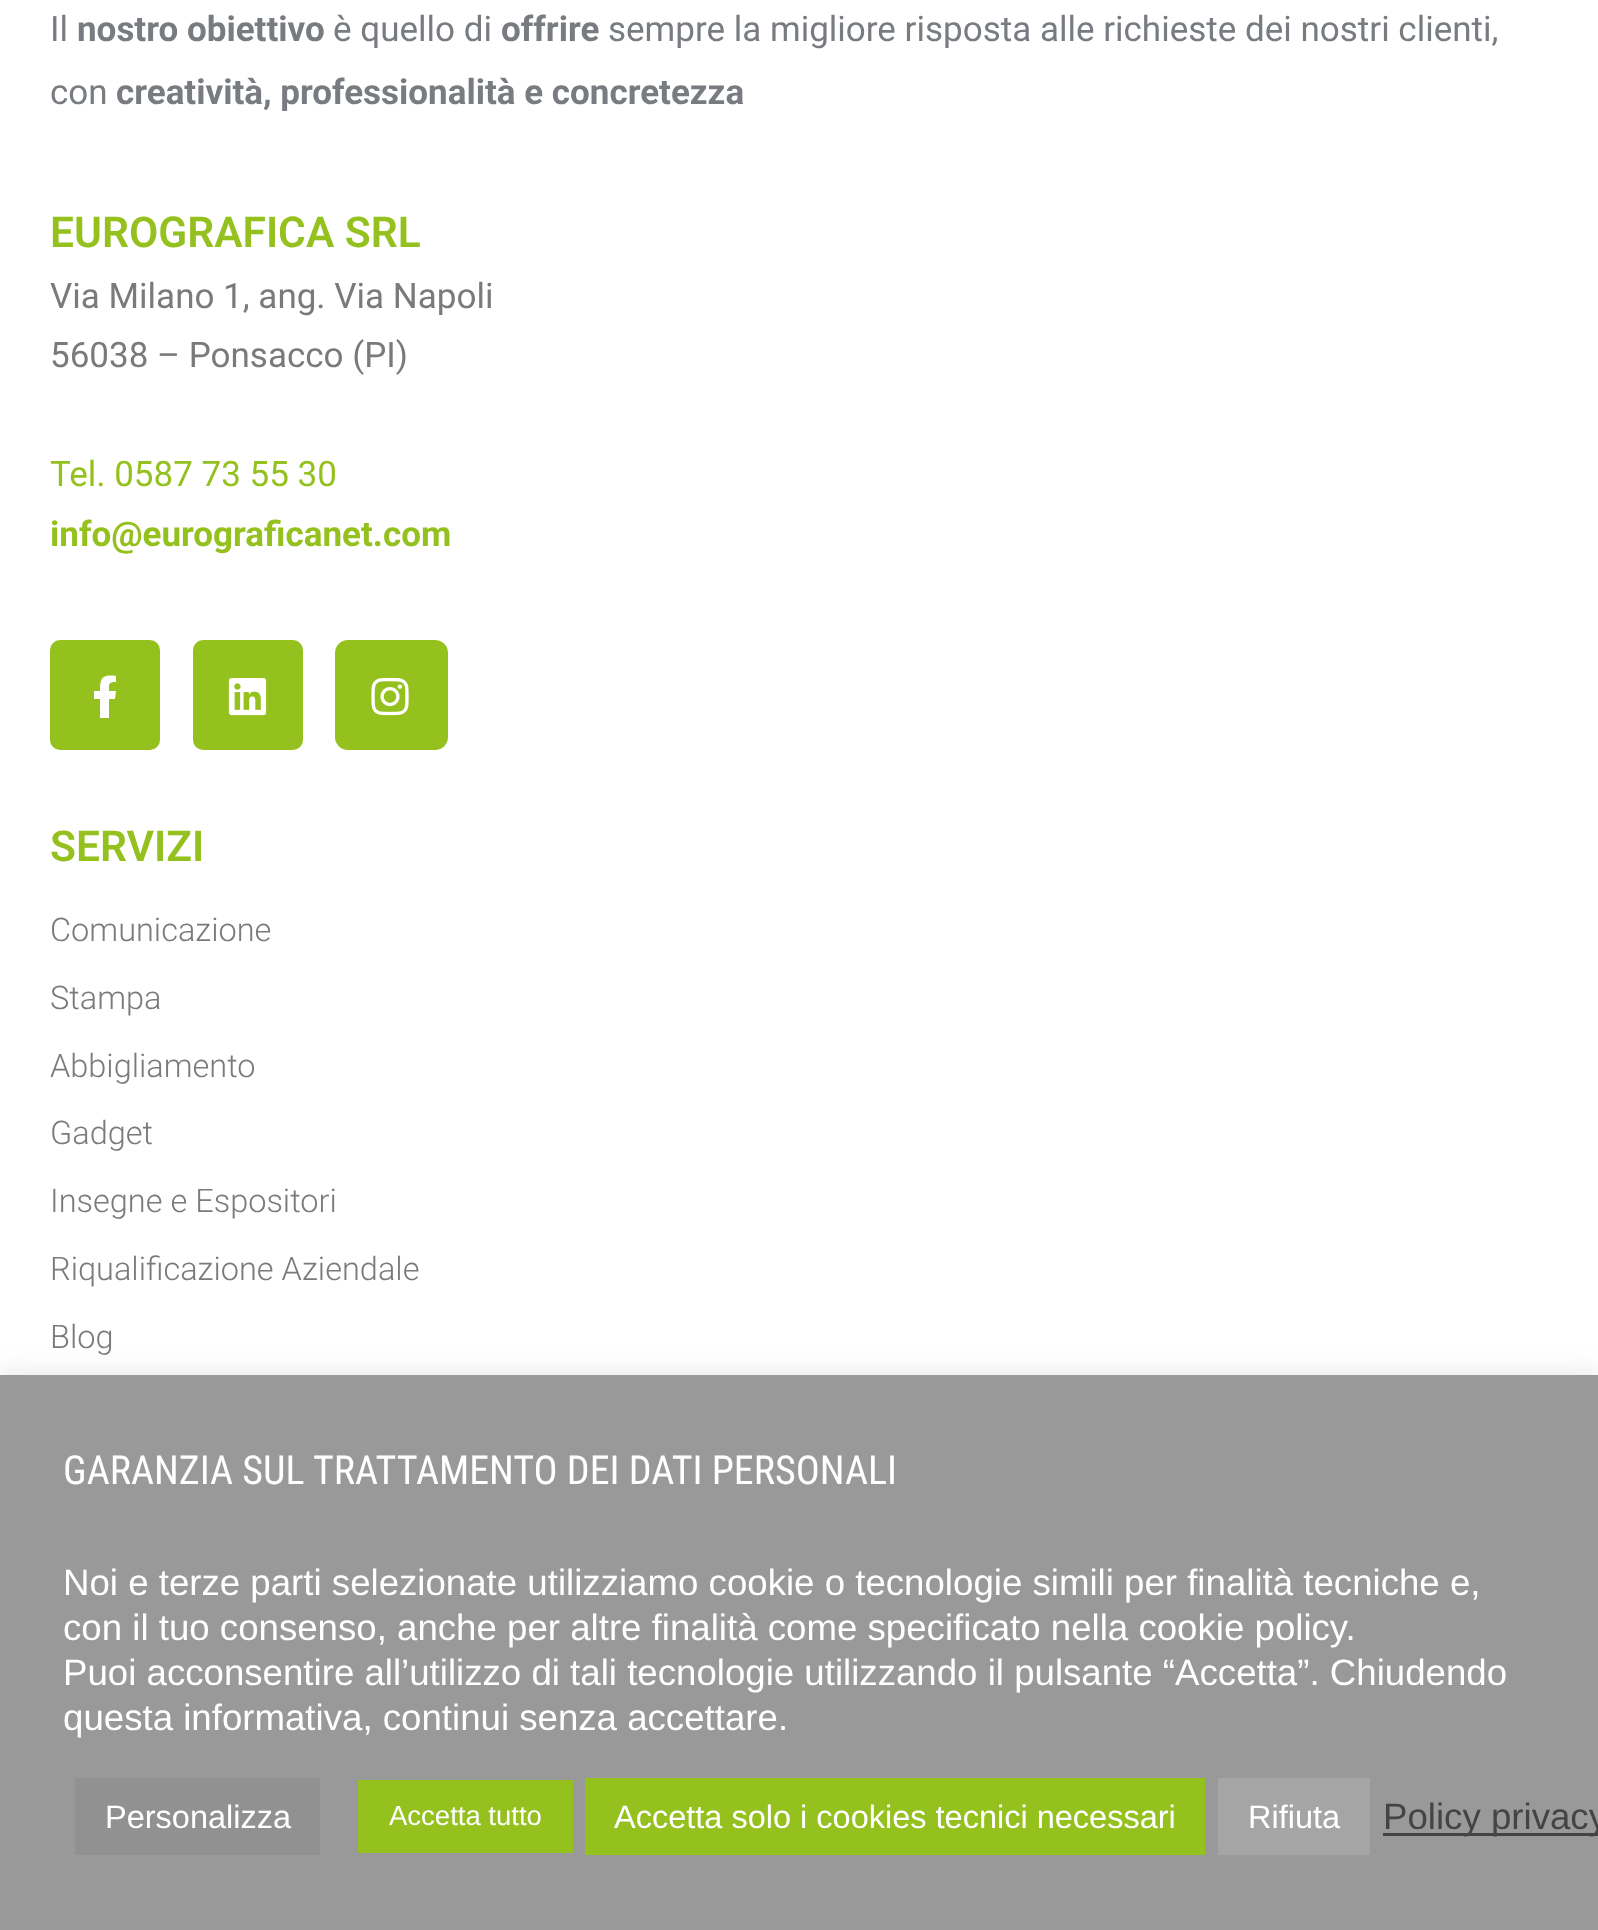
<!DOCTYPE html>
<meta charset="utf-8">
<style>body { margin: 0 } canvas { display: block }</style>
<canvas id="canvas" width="1598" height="1930"></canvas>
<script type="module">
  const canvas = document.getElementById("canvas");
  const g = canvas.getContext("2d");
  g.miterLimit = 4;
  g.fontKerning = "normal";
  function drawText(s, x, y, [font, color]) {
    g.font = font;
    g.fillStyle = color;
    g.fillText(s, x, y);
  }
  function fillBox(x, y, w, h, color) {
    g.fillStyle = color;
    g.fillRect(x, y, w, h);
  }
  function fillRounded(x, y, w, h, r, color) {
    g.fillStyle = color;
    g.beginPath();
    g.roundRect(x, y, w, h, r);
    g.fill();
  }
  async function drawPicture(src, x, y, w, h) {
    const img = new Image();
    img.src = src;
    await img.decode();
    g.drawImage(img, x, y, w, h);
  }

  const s1 = ["35px Roboto", "#787C81"];
  const s2 = ["bold 35px Roboto", "#787C81"];
  const s3 = ["600 42.5px Roboto", "#95C11F"];
  const s4 = ["35px Roboto", "#7A7A7A"];
  const s5 = ["35px Roboto", "#95C11F"];
  const s6 = ["bold 35px Roboto", "#95C11F"];
  const s7 = ["300 32.5px Roboto", "#7A7A7A"];
  const s8 = ["40px Roboto Condensed", "#FFFFFF"];
  const s9 = ["36.65px Liberation Sans", "#FFFFFF"];
  const s10 = ["32.5px Liberation Sans", "#FFFFFF"];
  const s11 = ["27.5px Liberation Sans", "#FFFFFF"];
  const s12 = ["36.65px Liberation Sans", "#444444"];

  fillBox(0, 0, 1598, 1930, "#FFFFFF");
  drawText("Il", 50, 41, s1);
  drawText("nostro obiettivo", 77, 41, s2);
  drawText("è quello di", 333, 41, s1);
  drawText("offrire", 501, 41, s2);
  drawText("sempre la migliore risposta alle richieste dei nostri clienti,", 608, 41, s1);
  drawText("con", 50, 104, s1);
  drawText("creatività, professionalità e concretezza", 116, 104, s2);
  drawText("EUROGRAFICA SRL", 50, 247, s3);
  drawText("Via Milano 1, ang. Via Napoli", 50, 308, s4);
  drawText("56038 – Ponsacco (PI)", 50, 367, s4);
  drawText("Tel. 0587 73 55 30", 50, 486, s5);
  drawText("info@eurograficanet.com", 50, 546, s6);
  fillRounded(50, 640, 110, 110, 10, "#95C11F");
  g.fillStyle = "#FFFFFF";
  g.beginPath();
  g.moveTo(115, 699);
  g.lineTo(109, 699);
  g.lineTo(109, 718);
  g.lineTo(100, 718);
  g.lineTo(100, 699);
  g.lineTo(94, 699);
  g.lineTo(94, 691);
  g.lineTo(100, 691);
  g.bezierCurveTo(100, 678, 102, 674, 116, 676);
  g.lineTo(116, 682);
  g.bezierCurveTo(108, 682, 109, 684, 109, 691);
  g.lineTo(116, 691);
  g.closePath();
  g.fill();
  fillRounded(193, 640, 110, 110, 10, "#95C11F");
  await drawPicture("pic1.png", 228, 678, 39, 38);
  fillRounded(335, 640, 113, 110, 13, "#95C11F");
  await drawPicture("pic2.png", 371, 677, 38, 39);
  drawText("SERVIZI", 50, 861, s3);
  drawText("Comunicazione", 50, 941, s7);
  drawText("Stampa", 50, 1009, s7);
  drawText("Abbigliamento", 50, 1077, s7);
  drawText("Gadget", 50, 1144, s7);
  drawText("Insegne e Espositori", 50, 1212, s7);
  drawText("Riqualificazione Aziendale", 50, 1280, s7);
  drawText("Blog", 50, 1348, s7);
  g.fillStyle = "rgba(172, 171, 171, 0.3)";
  g.filter = "blur(12.5px)";
  g.beginPath();
  g.rect(0, 1373, 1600, 555);
  g.fill();
  g.filter = "none";
  fillBox(0, 1375, 1598, 555, "#999999");
  drawText("GARANZIA SUL TRATTAMENTO DEI DATI PERSONALI", 63, 1484, s8);
  drawText("Noi e terze parti selezionate utilizziamo cookie o tecnologie simili per finalità tecniche e,", 63, 1595, s9);
  drawText("con il tuo consenso, anche per altre finalità come specificato nella cookie policy.", 63, 1640, s9);
  drawText("Puoi acconsentire all’utilizzo di tali tecnologie utilizzando il pulsante “Accetta”. Chiudendo", 63, 1685, s9);
  drawText("questa informativa, continui senza accettare.", 63, 1730, s9);
  fillBox(75, 1778, 245, 77, "#919191");
  drawText("Personalizza", 105, 1828, s10);
  fillBox(358, 1780, 215, 73, "#95C11F");
  drawText("Accetta tutto", 389, 1825, s11);
  fillBox(585, 1778, 620, 77, "#95C11F");
  drawText("Accetta solo i cookies tecnici necessari", 614, 1828, s10);
  fillBox(1218, 1778, 152, 77, "#A5A5A5");
  drawText("Rifiuta", 1248, 1828, s10);
  fillBox(1383, 1833, 215, 3, "#444444");
  drawText("Policy privacy", 1383, 1829, s12);
</script>
